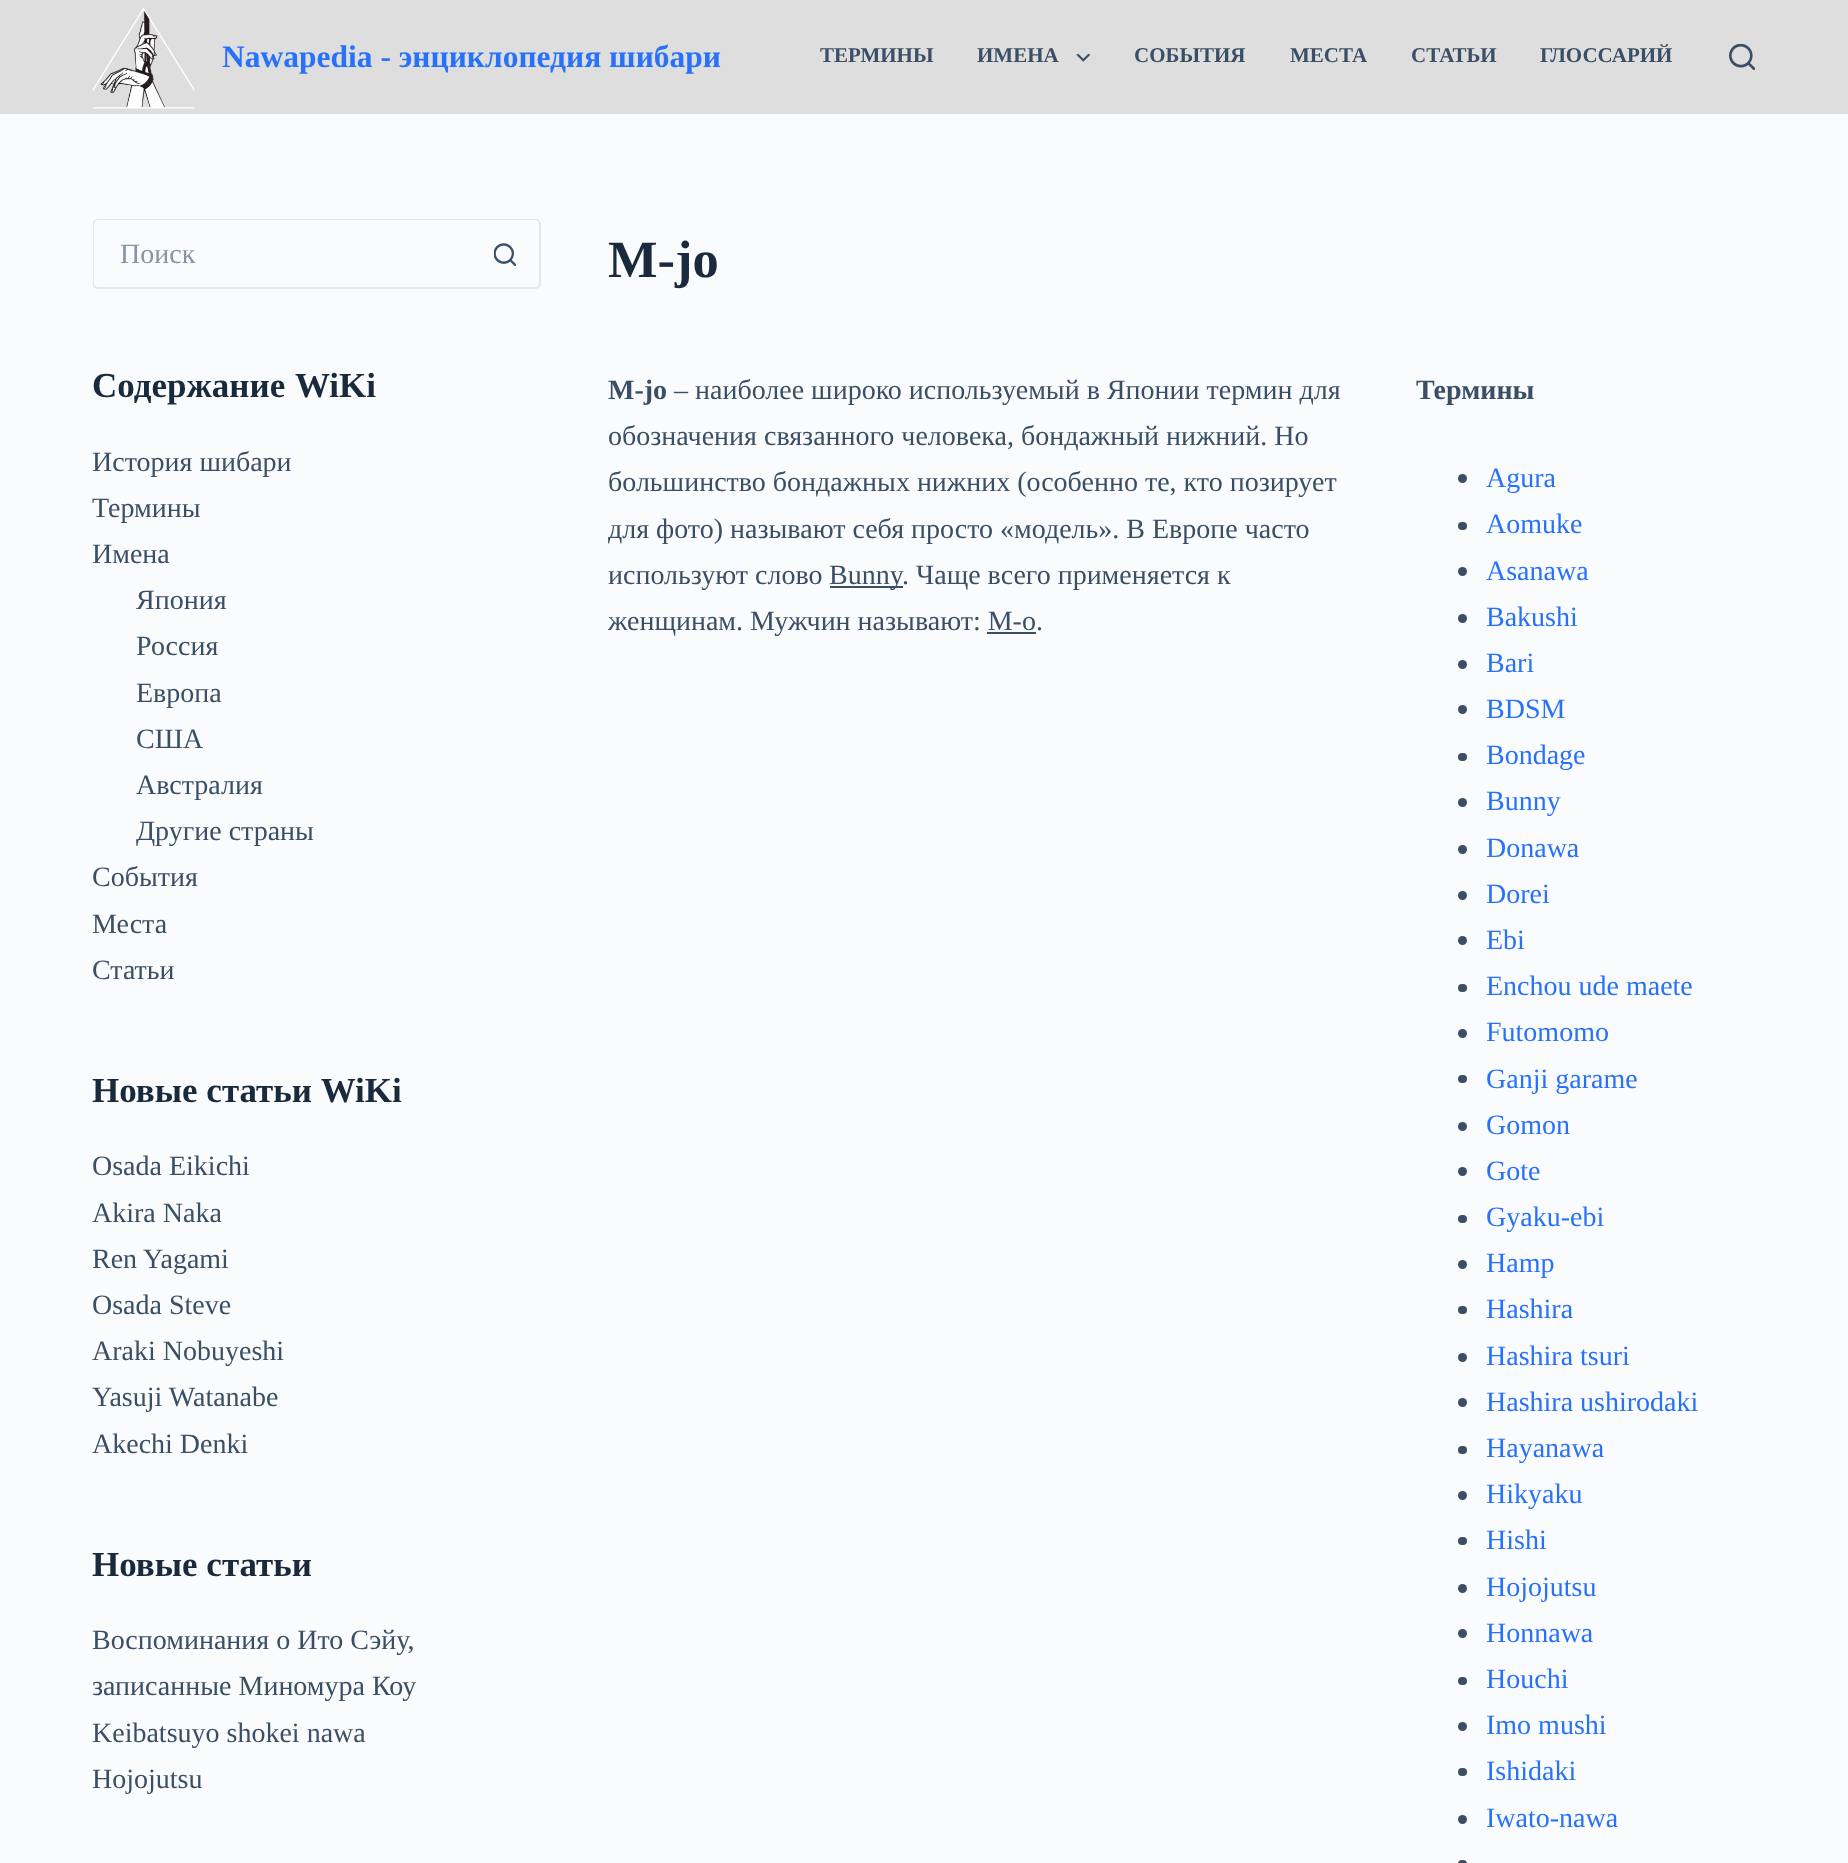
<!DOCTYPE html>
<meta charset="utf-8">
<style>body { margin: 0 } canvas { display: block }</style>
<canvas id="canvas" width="1848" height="1863"></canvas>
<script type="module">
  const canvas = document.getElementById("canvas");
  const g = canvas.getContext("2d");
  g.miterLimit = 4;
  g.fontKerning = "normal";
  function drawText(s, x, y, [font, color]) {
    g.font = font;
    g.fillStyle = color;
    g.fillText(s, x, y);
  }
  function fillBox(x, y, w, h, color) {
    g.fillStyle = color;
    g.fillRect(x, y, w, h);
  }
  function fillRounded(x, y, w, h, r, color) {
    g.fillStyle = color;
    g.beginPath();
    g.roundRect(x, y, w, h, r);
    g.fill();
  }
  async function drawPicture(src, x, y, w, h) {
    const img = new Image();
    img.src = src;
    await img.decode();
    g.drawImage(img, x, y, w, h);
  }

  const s1 = ["bold 31.5px Liberation Serif", "#2872FA"];
  const s2 = ["bold 21px Liberation Serif", "#3A4F66"];
  const s3 = ["28px Liberation Serif", "#8794A2"];
  const s4 = ["bold 35px Liberation Serif", "#192A3D"];
  const s5 = ["28px Liberation Serif", "#3A4F66"];
  const s6 = ["bold 52.5px Liberation Serif", "#192A3D"];
  const s7 = ["bold 28px Liberation Serif", "#3A4F66"];
  const s8 = ["28px Liberation Serif", "#2872FA"];

  fillBox(0, 0, 1848, 1863, "#FAFBFC");
  fillBox(0, 0, 1848, 114, "#DEDEDE");
  await drawPicture("pic1.png", 92, 7, 103, 102);
  drawText("Nawapedia - энциклопедия шибари", 222, 67, s1);
  drawText("ТЕРМИНЫ", 820, 62, s2);
  drawText("ИМЕНА", 977, 62, s2);
  await drawPicture("pic2.png", 1076, 53, 14, 9);
  drawText("СОБЫТИЯ", 1134, 62, s2);
  drawText("МЕСТА", 1290, 62, s2);
  drawText("СТАТЬИ", 1411, 62, s2);
  drawText("ГЛОССАРИЙ", 1540, 62, s2);
  await drawPicture("pic3.png", 1729, 44, 26, 26);
  g.fillStyle = "#E1E8ED";
  g.beginPath();
  g.moveTo(98, 219);
  g.lineTo(471, 219);
  g.lineTo(471, 289);
  g.lineTo(98, 289);
  g.bezierCurveTo(95, 289, 93, 286, 93, 284);
  g.lineTo(93, 224);
  g.bezierCurveTo(93, 221, 95, 219, 98, 219);
  g.closePath();
  g.moveTo(98, 220);
  g.lineTo(471, 220);
  g.lineTo(471, 287);
  g.lineTo(98, 287);
  g.bezierCurveTo(96, 287, 94, 285, 94, 284);
  g.lineTo(94, 224);
  g.bezierCurveTo(94, 222, 96, 220, 98, 220);
  g.closePath();
  g.fill("evenodd");
  drawText("Поиск", 120, 263, s3);
  g.fillStyle = "#E1E8ED";
  g.beginPath();
  g.moveTo(471, 219);
  g.lineTo(536, 219);
  g.bezierCurveTo(538, 219, 541, 221, 541, 224);
  g.lineTo(541, 284);
  g.bezierCurveTo(541, 286, 538, 289, 536, 289);
  g.lineTo(471, 289);
  g.closePath();
  g.moveTo(471, 220);
  g.lineTo(536, 220);
  g.bezierCurveTo(537, 220, 539, 222, 539, 224);
  g.lineTo(539, 284);
  g.bezierCurveTo(539, 285, 537, 287, 536, 287);
  g.lineTo(471, 287);
  g.closePath();
  g.fill("evenodd");
  await drawPicture("pic4.png", 494, 243, 22, 23);
  g.beginPath();
  g.moveTo(497.5, 243.5);
  g.bezierCurveTo(503, 239, 511, 240, 516, 245.5);
  g.strokeStyle = "#FAFBFC";
  g.lineWidth = 2.6;
  g.lineCap = "round";
  g.stroke();
  g.wordSpacing = "1px";
  drawText("Содержание WiKi", 92, 397, s4);
  g.wordSpacing = "0px";
  drawText("История шибари", 92, 471, s5);
  drawText("Термины", 92, 517, s5);
  drawText("Имена", 92, 563, s5);
  drawText("Япония", 136, 609, s5);
  drawText("Россия", 136, 655, s5);
  drawText("Европа", 136, 702, s5);
  drawText("США", 136, 748, s5);
  drawText("Австралия", 136, 794, s5);
  drawText("Другие страны", 136, 840, s5);
  drawText("События", 92, 886, s5);
  drawText("Места", 92, 933, s5);
  drawText("Статьи", 92, 979, s5);
  drawText("Новые статьи WiKi", 92, 1102, s4);
  drawText("Osada Eikichi", 92, 1175, s5);
  drawText("Akira Naka", 92, 1222, s5);
  drawText("Ren Yagami", 92, 1268, s5);
  drawText("Osada Steve", 92, 1314, s5);
  drawText("Araki Nobuyeshi", 92, 1360, s5);
  drawText("Yasuji Watanabe", 92, 1406, s5);
  drawText("Akechi Denki", 92, 1453, s5);
  drawText("Новые статьи", 92, 1576, s4);
  drawText("Воспоминания о Ито Сэйу,", 92, 1649, s5);
  drawText("записанные Миномура Коу", 92, 1695, s5);
  drawText("Keibatsuyo shokei nawa", 92, 1742, s5);
  drawText("Hojojutsu", 92, 1788, s5);
  drawText("M-jo", 608, 277, s6);
  drawText("M-jo", 608, 399, s7);
  drawText("– наиболее широко используемый в Японии термин для", 674, 399, s5);
  drawText("обозначения связанного человека, бондажный нижний. Но", 608, 445, s5);
  drawText("большинство бондажных нижних (особенно те, кто позирует", 608, 491, s5);
  drawText("для фото) называют себя просто «модель». В Европе часто", 608, 538, s5);
  drawText("используют слово", 608, 584, s5);
  fillBox(830, 586, 73, 2, "#3A4F66");
  drawText("Bunny", 829, 584, s5);
  drawText(". Чаще всего применяется к", 902, 584, s5);
  drawText("женщинам. Мужчин называют: M-o.", 608, 630, s5);
  fillBox(987, 632, 49, 2, "#3A4F66");
  drawText("Термины", 1416, 399, s7);
  g.beginPath();
  g.arc(1462.5, 478.5, 4.5, 0, Math.PI * 2);
  g.fill();
  drawText("Agura", 1486, 487, s8);
  fillRounded(1458, 522, 9, 8, 4, "#3A4F66");
  drawText("Aomuke", 1486, 533, s8);
  g.fillStyle = "#3A4F66";
  g.beginPath();
  g.arc(1462.5, 571.5, 4.5, 0, Math.PI * 2);
  g.fill();
  drawText("Asanawa", 1486, 580, s8);
  g.fillStyle = "#3A4F66";
  g.beginPath();
  g.arc(1462.5, 618.5, 4.5, 0, Math.PI * 2);
  g.fill();
  drawText("Bakushi", 1486, 626, s8);
  g.fillStyle = "#3A4F66";
  g.beginPath();
  g.arc(1462.5, 664.5, 4.5, 0, Math.PI * 2);
  g.fill();
  drawText("Bari", 1486, 672, s8);
  g.fillStyle = "#3A4F66";
  g.beginPath();
  g.arc(1462.5, 709.5, 4.5, 0, Math.PI * 2);
  g.fill();
  drawText("BDSM", 1486, 718, s8);
  fillRounded(1458, 753, 9, 8, 4, "#3A4F66");
  drawText("Bondage", 1486, 764, s8);
  g.fillStyle = "#3A4F66";
  g.beginPath();
  g.arc(1462.5, 802.5, 4.5, 0, Math.PI * 2);
  g.fill();
  drawText("Bunny", 1486, 810, s8);
  g.fillStyle = "#3A4F66";
  g.beginPath();
  g.arc(1462.5, 849.5, 4.5, 0, Math.PI * 2);
  g.fill();
  drawText("Donawa", 1486, 857, s8);
  g.fillStyle = "#3A4F66";
  g.beginPath();
  g.arc(1462.5, 895.5, 4.5, 0, Math.PI * 2);
  g.fill();
  drawText("Dorei", 1486, 903, s8);
  g.fillStyle = "#3A4F66";
  g.beginPath();
  g.arc(1462.5, 940.5, 4.5, 0, Math.PI * 2);
  g.fill();
  drawText("Ebi", 1486, 949, s8);
  fillRounded(1458, 984, 9, 8, 4, "#3A4F66");
  drawText("Enchou ude maete", 1486, 995, s8);
  g.fillStyle = "#3A4F66";
  g.beginPath();
  g.arc(1462.5, 1033.5, 4.5, 0, Math.PI * 2);
  g.fill();
  drawText("Futomomo", 1486, 1041, s8);
  fillRounded(1458, 1075, 9, 8, 4, "#3A4F66");
  drawText("Ganji garame", 1486, 1088, s8);
  g.fillStyle = "#3A4F66";
  g.beginPath();
  g.arc(1462.5, 1126.5, 4.5, 0, Math.PI * 2);
  g.fill();
  drawText("Gomon", 1486, 1134, s8);
  g.fillStyle = "#3A4F66";
  g.beginPath();
  g.arc(1462.5, 1171.5, 4.5, 0, Math.PI * 2);
  g.fill();
  drawText("Gote", 1486, 1180, s8);
  fillRounded(1458, 1215, 9, 8, 4, "#3A4F66");
  drawText("Gyaku-ebi", 1486, 1226, s8);
  g.fillStyle = "#3A4F66";
  g.beginPath();
  g.arc(1462.5, 1264.5, 4.5, 0, Math.PI * 2);
  g.fill();
  drawText("Hamp", 1486, 1272, s8);
  fillRounded(1458, 1306, 9, 8, 4, "#3A4F66");
  drawText("Hashira", 1486, 1318, s8);
  g.fillStyle = "#3A4F66";
  g.beginPath();
  g.arc(1462.5, 1357.5, 4.5, 0, Math.PI * 2);
  g.fill();
  drawText("Hashira tsuri", 1486, 1365, s8);
  g.fillStyle = "#3A4F66";
  g.beginPath();
  g.arc(1462.5, 1402.5, 4.5, 0, Math.PI * 2);
  g.fill();
  drawText("Hashira ushirodaki", 1486, 1411, s8);
  fillRounded(1458, 1446, 9, 8, 4, "#3A4F66");
  drawText("Hayanawa", 1486, 1457, s8);
  g.fillStyle = "#3A4F66";
  g.beginPath();
  g.arc(1462.5, 1495.5, 4.5, 0, Math.PI * 2);
  g.fill();
  drawText("Hikyaku", 1486, 1503, s8);
  fillRounded(1458, 1537, 9, 8, 4, "#3A4F66");
  drawText("Hishi", 1486, 1549, s8);
  g.fillStyle = "#3A4F66";
  g.beginPath();
  g.arc(1462.5, 1588.5, 4.5, 0, Math.PI * 2);
  g.fill();
  drawText("Hojojutsu", 1486, 1596, s8);
  g.fillStyle = "#3A4F66";
  g.beginPath();
  g.arc(1462.5, 1633.5, 4.5, 0, Math.PI * 2);
  g.fill();
  drawText("Honnawa", 1486, 1642, s8);
  fillRounded(1458, 1677, 9, 8, 4, "#3A4F66");
  drawText("Houchi", 1486, 1688, s8);
  g.fillStyle = "#3A4F66";
  g.beginPath();
  g.arc(1462.5, 1726.5, 4.5, 0, Math.PI * 2);
  g.fill();
  drawText("Imo mushi", 1486, 1734, s8);
  fillRounded(1458, 1768, 9, 8, 4, "#3A4F66");
  drawText("Ishidaki", 1486, 1780, s8);
  g.fillStyle = "#3A4F66";
  g.beginPath();
  g.arc(1462.5, 1819.5, 4.5, 0, Math.PI * 2);
  g.fill();
  drawText("Iwato-nawa", 1486, 1827, s8);
  fillRounded(1458, 1860, 9, 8, 4.5, "#3A4F66");
</script>
